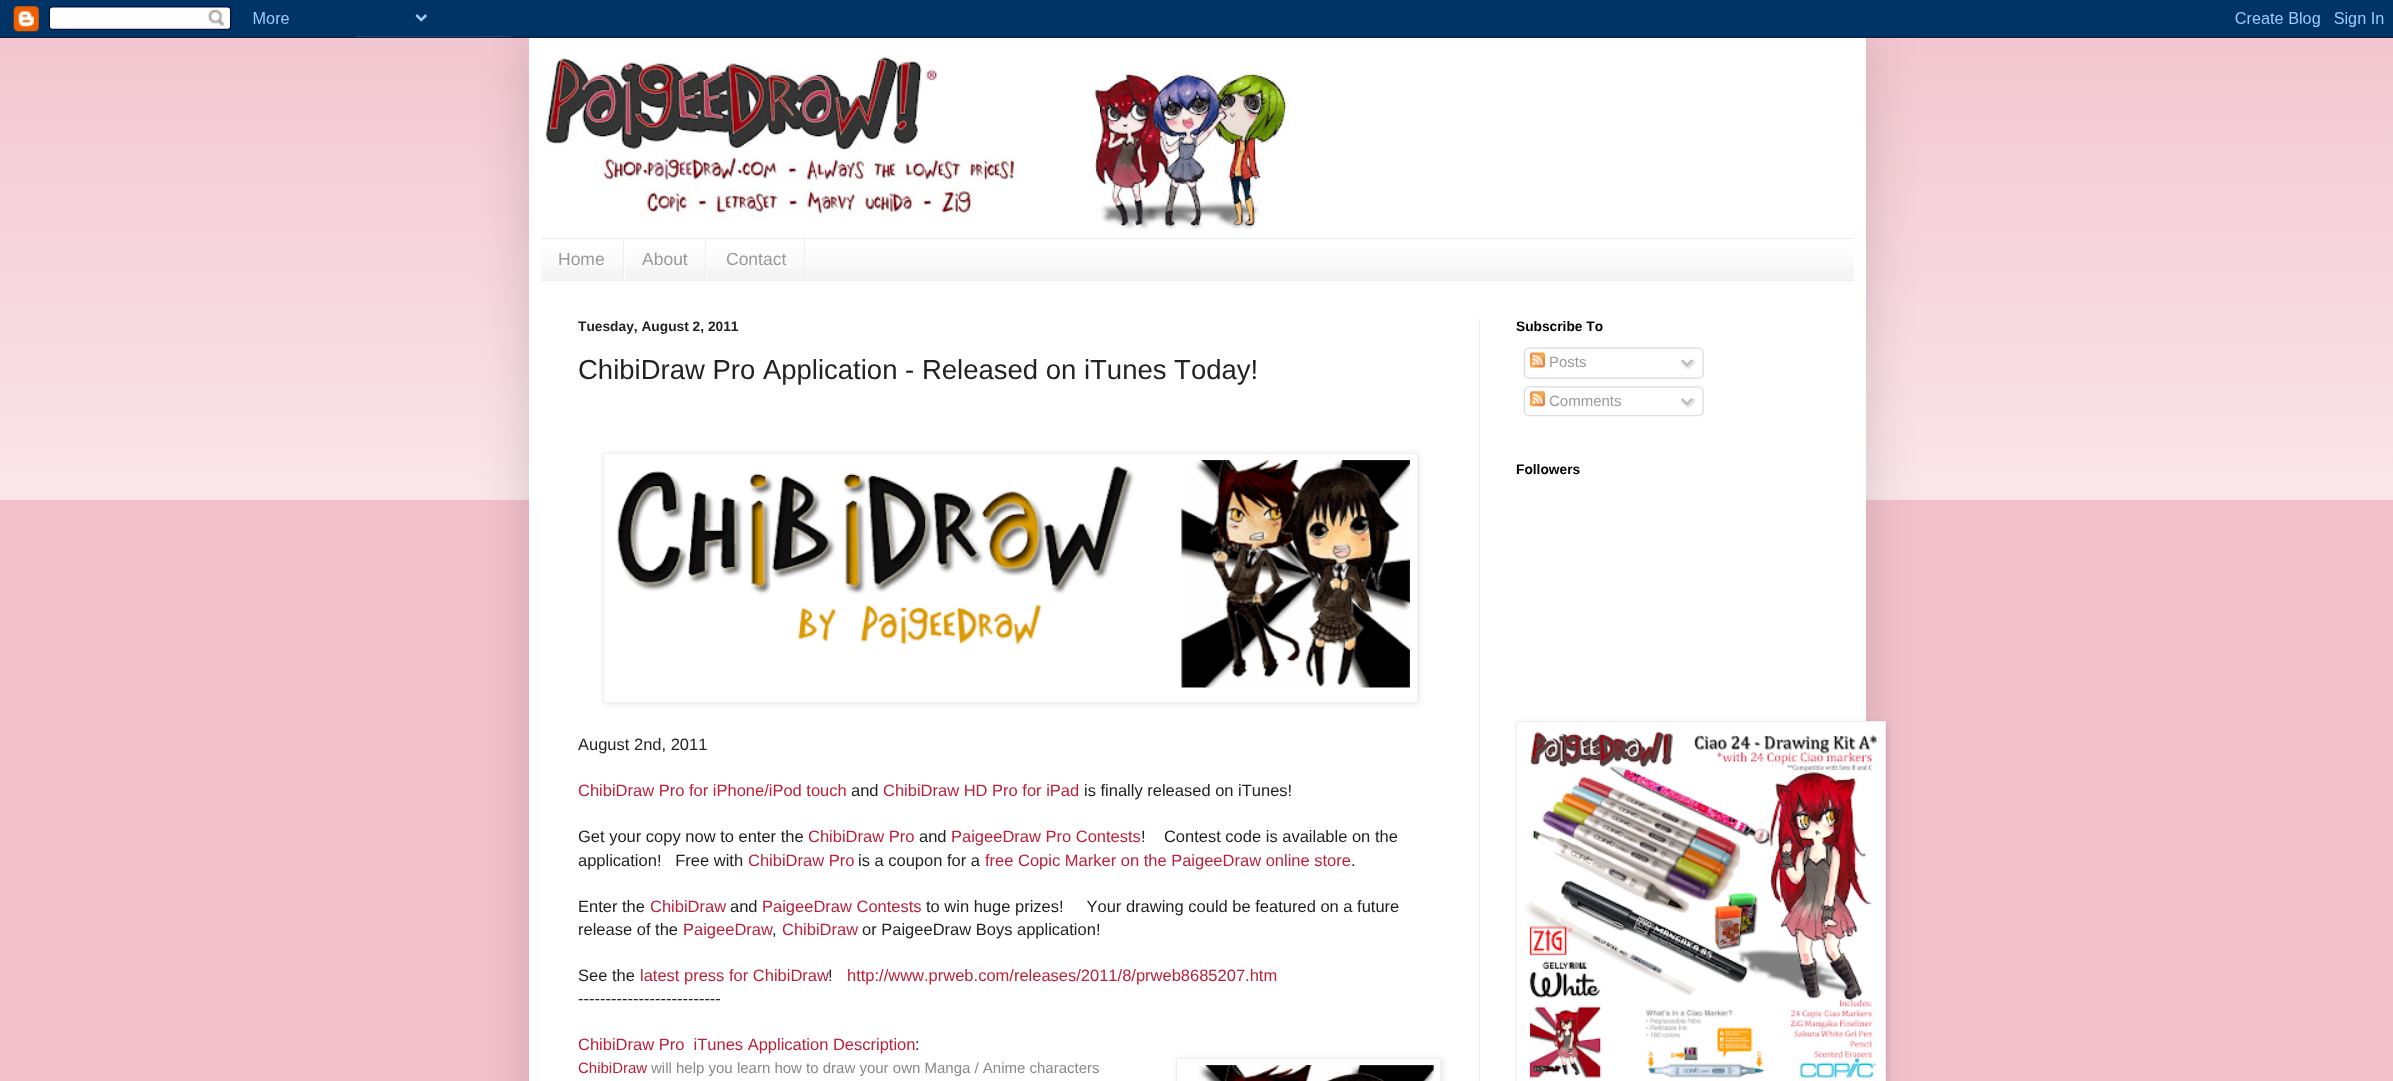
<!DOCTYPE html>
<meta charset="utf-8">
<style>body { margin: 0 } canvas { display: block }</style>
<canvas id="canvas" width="2393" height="1081"></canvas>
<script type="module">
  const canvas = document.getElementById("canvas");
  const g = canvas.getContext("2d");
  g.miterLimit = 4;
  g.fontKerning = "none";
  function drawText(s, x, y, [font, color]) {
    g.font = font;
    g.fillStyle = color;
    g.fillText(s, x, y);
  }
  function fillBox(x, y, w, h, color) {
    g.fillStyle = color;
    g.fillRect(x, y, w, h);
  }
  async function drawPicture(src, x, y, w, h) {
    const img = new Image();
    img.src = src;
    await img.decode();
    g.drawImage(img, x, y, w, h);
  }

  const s1 = ["17.5px Liberation Sans", "#999999"];
  const s2 = ["bold 13.75px Liberation Sans", "#222222"];
  const s3 = ["27.5px Liberation Sans", "#222222"];
  const s4 = ["16.5px Liberation Sans", "#222222"];
  const s5 = ["16.5px Liberation Sans", "#BB213A"];
  const s6 = ["15px Liberation Sans", "#BB213A"];
  const s7 = ["15px Liberation Sans", "#898989"];
  const s8 = ["bold 13.75px Liberation Sans", "#000000"];
  const s9 = ["15px Liberation Sans", "#999999"];

  fillBox(0, 0, 2393, 1081, "#F2C1CC");
  await drawPicture("pic2.png", 0, 36, 2393, 464);
  g.fillStyle = "rgba(0, 0, 0, 0.15)";
  g.filter = "blur(25px)";
  g.beginPath();
  g.rect(529, 38, 1337, 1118);
  g.fill();
  g.filter = "none";
  await drawPicture("pic1.png", 0, 0, 2393, 38);
  fillBox(529, 38, 1337, 1043, "#FFFFFF");
  await drawPicture("pic3.png", 541, 50, 750, 180);
  fillBox(541, 239, 1313, 41, "#F5F5F5");
  await drawPicture("pic4.png", 541, 239, 1313, 29);
  fillBox(541, 238, 1313, 1, "#EEEEEE");
  fillBox(541, 280, 1313, 1, "#EEEEEE");
  fillBox(623, 239, 1, 41, "#EEEEEE");
  drawText("Home", 558, 265, s1);
  fillBox(705, 239, 1, 41, "#EEEEEE");
  fillBox(624, 252, 1, 28, "#FFFFFF");
  drawText("About", 642, 265, s1);
  fillBox(804, 239, 1, 41, "#EEEEEE");
  fillBox(706, 252, 1, 28, "#FFFFFF");
  drawText("Contact", 726, 265, s1);
  fillBox(1479, 319, 1, 762, "#EEEEEE");
  drawText("Tuesday, August 2, 2011", 578, 331, s2);
  drawText("ChibiDraw Pro Application - Released on iTunes Today!", 578, 379, s3);
  g.fillStyle = "rgba(0, 0, 0, 0.1)";
  g.filter = "blur(3px)";
  g.beginPath();
  g.rect(604, 454, 815, 250);
  g.fill();
  g.filter = "none";
  g.fillStyle = "#FFFFFF";
  g.beginPath();
  g.rect(603.5, 453.5, 814, 249);
  g.fill();
  g.strokeStyle = "#EEEEEE";
  g.stroke();
  await drawPicture("pic5.png", 617, 460, 793, 228);
  drawText("August 2nd, 2011", 578, 750, s4);
  drawText("ChibiDraw Pro for iPhone/iPod touch", 578, 796, s5);
  drawText("and", 851, 796, s4);
  drawText("ChibiDraw HD Pro for iPad", 883, 796, s5);
  drawText("is finally released on iTunes!", 1084, 796, s4);
  drawText("Get your copy now to enter the", 578, 842, s4);
  drawText("ChibiDraw Pro", 808, 842, s5);
  drawText("and", 919, 842, s4);
  drawText("PaigeeDraw Pro Contests", 951, 842, s5);
  drawText("!    Contest code is available on the", 1141, 842, s4);
  drawText("application!   Free with", 578, 866, s4);
  drawText("ChibiDraw Pro", 748, 866, s5);
  drawText("is a coupon for a", 858, 866, s4);
  drawText("free Copic Marker on the PaigeeDraw online store", 985, 866, s5);
  drawText(".", 1351, 866, s4);
  drawText("Enter the", 578, 912, s4);
  drawText("ChibiDraw", 650, 912, s5);
  drawText("and", 730, 912, s4);
  drawText("PaigeeDraw Contests", 762, 912, s5);
  drawText("to win huge prizes!     Your drawing could be featured on a future", 926, 912, s4);
  drawText("release of the", 578, 935, s4);
  drawText("PaigeeDraw", 683, 935, s5);
  drawText(",", 772, 935, s4);
  drawText("ChibiDraw", 782, 935, s5);
  drawText("or PaigeeDraw Boys application!", 862, 935, s4);
  drawText("See the", 578, 981, s4);
  drawText("latest press for ChibiDraw", 640, 981, s5);
  drawText("!", 828, 981, s4);
  drawText("http://www.prweb.com/releases/2011/8/prweb8685207.htm", 847, 981, s5);
  drawText("--------------------------", 578, 1004, s4);
  drawText("ChibiDraw Pro  iTunes Application Description", 578, 1050, s5);
  drawText(":", 915, 1050, s4);
  drawText("ChibiDraw", 578, 1073, s6);
  drawText("will help you learn how to draw your own Manga / Anime characters", 651, 1073, s7);
  g.fillStyle = "rgba(0, 0, 0, 0.1)";
  g.filter = "blur(3px)";
  g.beginPath();
  g.rect(1178, 1059, 265, 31);
  g.fill();
  g.filter = "none";
  g.fillStyle = "#FFFFFF";
  g.beginPath();
  g.rect(1176.5, 1058.5, 264, 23);
  g.fill();
  g.stroke();
  await drawPicture("pic6.png", 1198, 1065, 236, 16);
  drawText("Subscribe To", 1516, 331, s8);
  await drawPicture("pic7.png", 1523, 347, 181, 28);
  await drawPicture("pic8.png", 1530, 352, 15, 16);
  drawText("Posts", 1549, 367, s9);
  await drawPicture("pic9.png", 1680, 359, 16, 11);
  await drawPicture("pic10.png", 1524, 375, 180, 4);
  await drawPicture("pic11.png", 1523, 386, 181, 27);
  await drawPicture("pic12.png", 1530, 391, 15, 16);
  drawText("Comments", 1549, 406, s9);
  await drawPicture("pic13.png", 1680, 398, 16, 11);
  await drawPicture("pic14.png", 1524, 412, 180, 5);
  drawText("Followers", 1516, 474, s8);
  g.fillStyle = "rgba(0, 0, 0, 0.1)";
  g.filter = "blur(3px)";
  g.beginPath();
  g.rect(1518, 723, 370, 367);
  g.fill();
  g.filter = "none";
  g.fillStyle = "#FFFFFF";
  g.beginPath();
  g.rect(1516.5, 721.5, 369, 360);
  g.fill();
  g.stroke();
  await drawPicture("pic15.png", 1524, 731, 354, 348);
</script>
